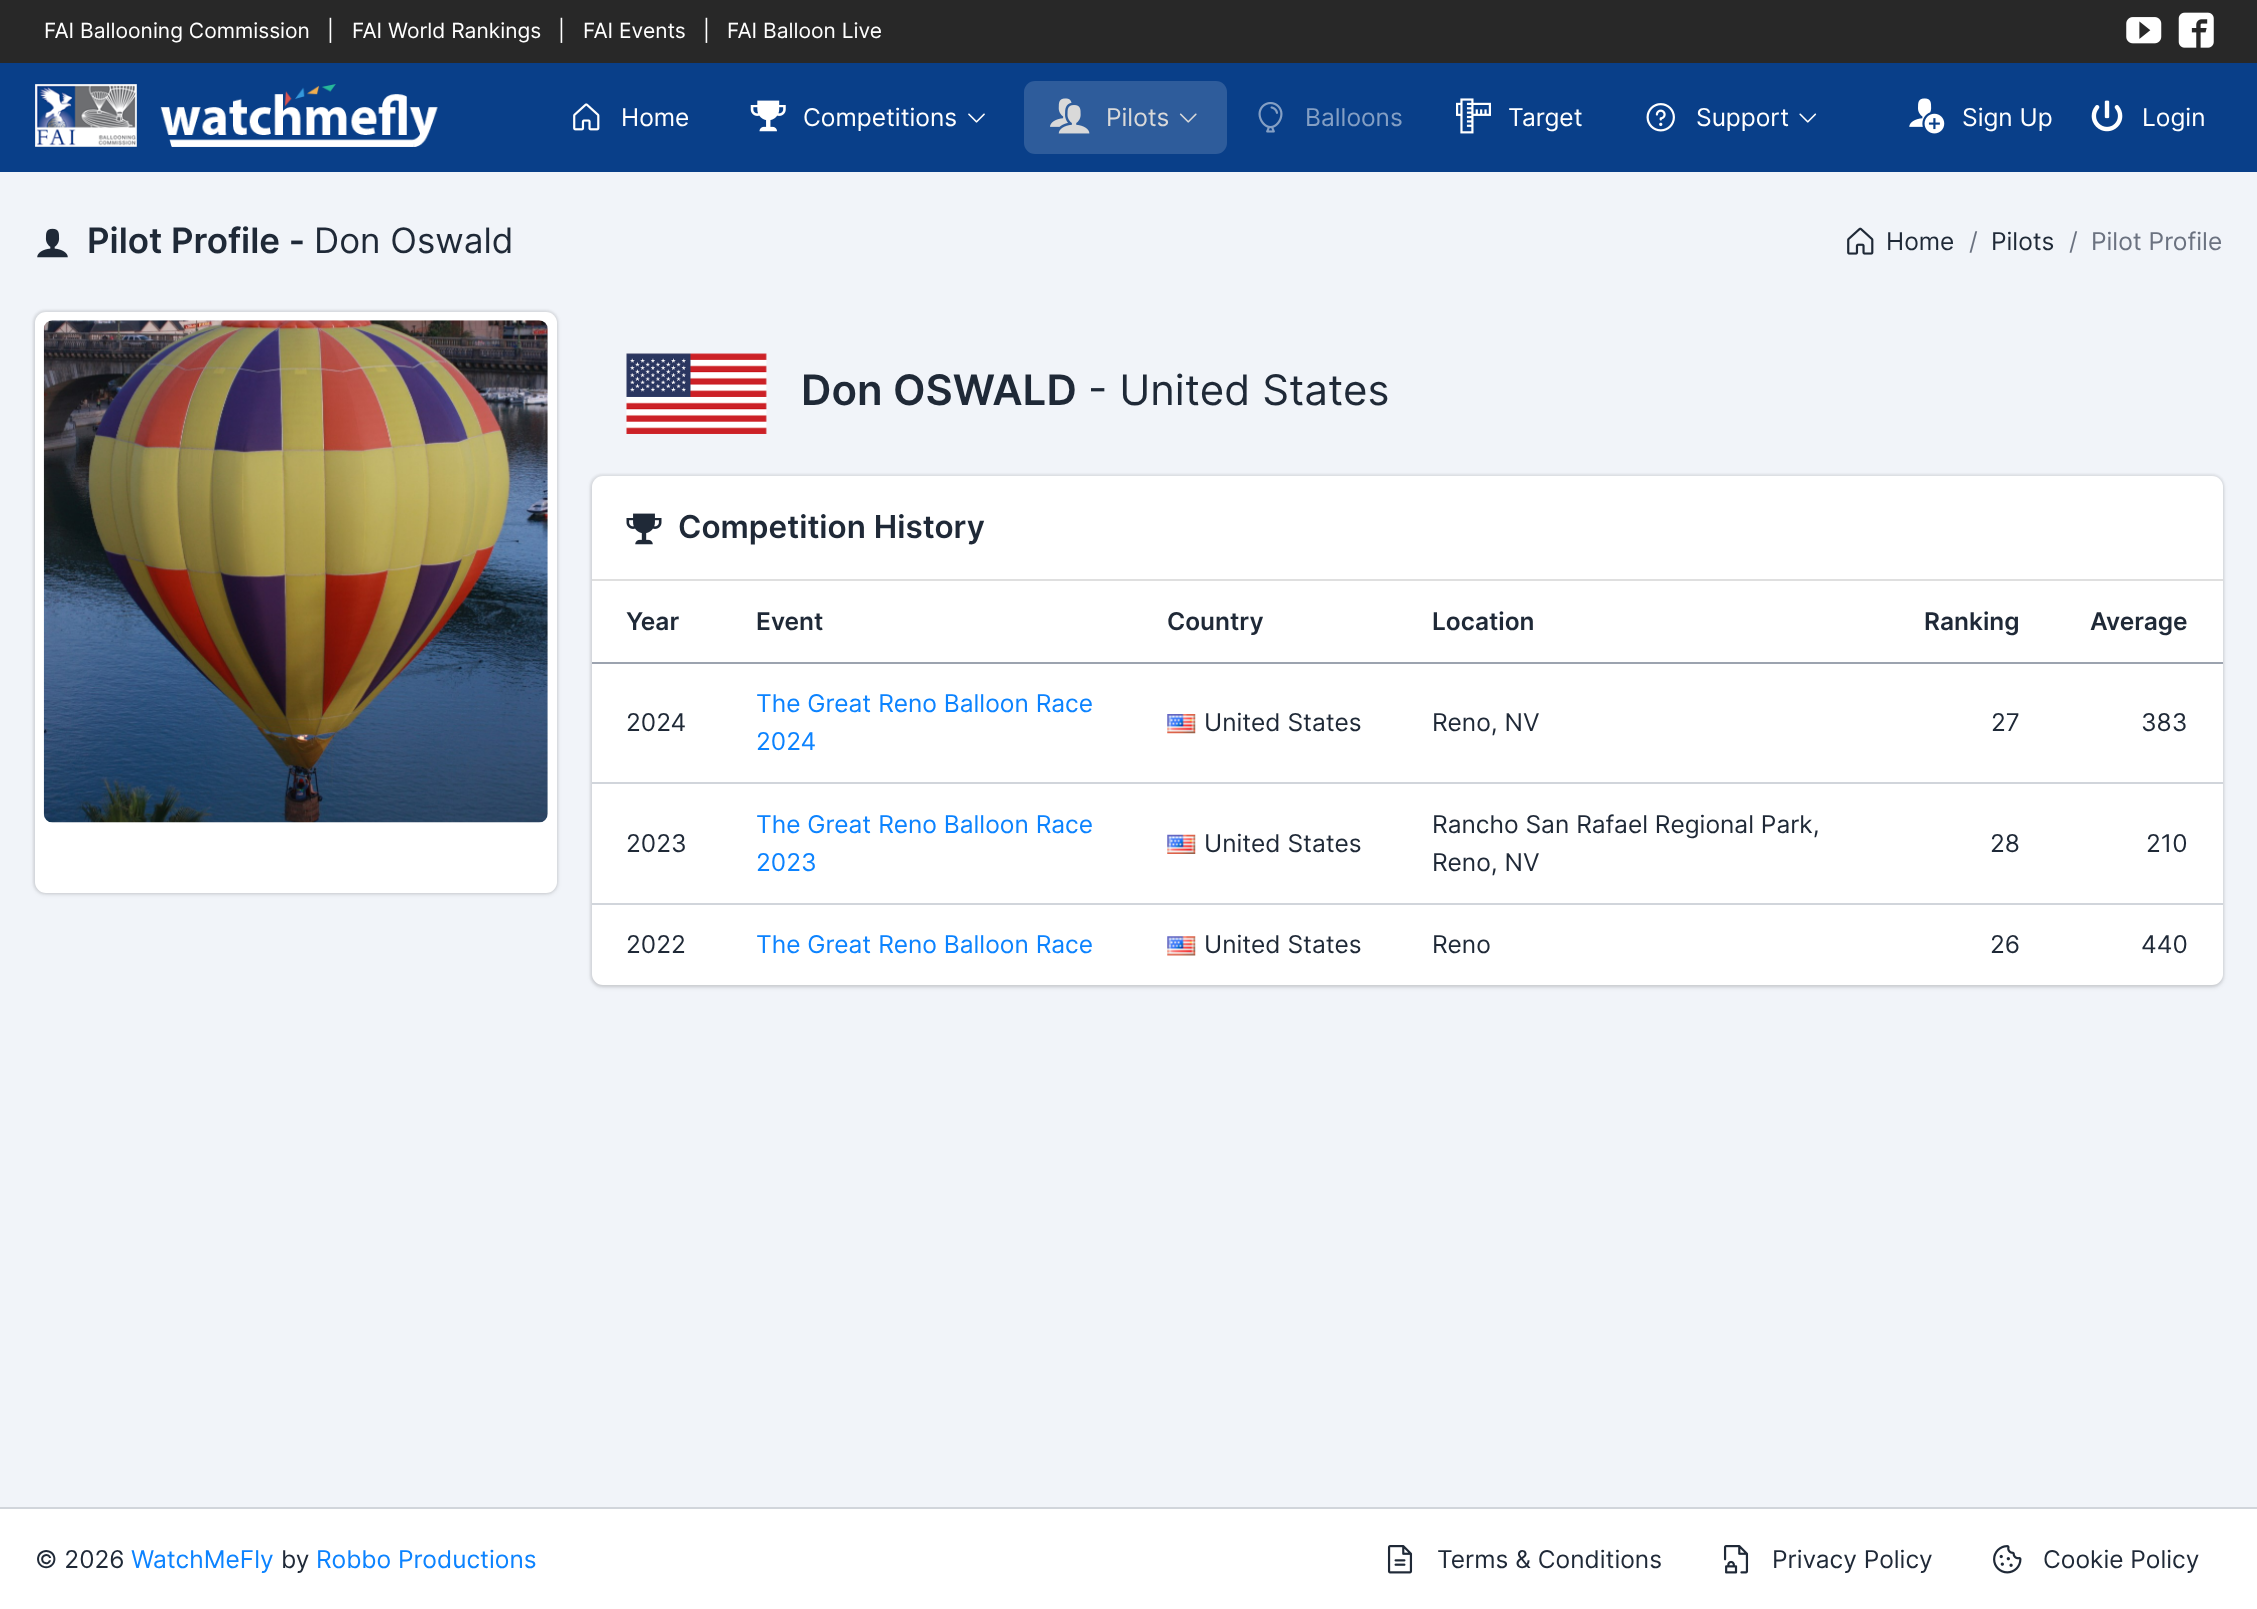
<!DOCTYPE html>
<meta charset="utf-8">
<style>body { margin: 0 } canvas { display: block }</style>
<canvas id="canvas" width="2257" height="1609"></canvas>
<script type="module">
  const canvas = document.getElementById("canvas");
  const g = canvas.getContext("2d");
  g.miterLimit = 4;
  g.fontKerning = "normal";
  function drawText(s, x, y, [font, color]) {
    g.font = font;
    g.fillStyle = color;
    g.fillText(s, x, y);
  }
  function fillBox(x, y, w, h, color) {
    g.fillStyle = color;
    g.fillRect(x, y, w, h);
  }
  function fillRounded(x, y, w, h, r, color) {
    g.fillStyle = color;
    g.beginPath();
    g.roundRect(x, y, w, h, r);
    g.fill();
  }
  async function drawPicture(src, x, y, w, h) {
    const img = new Image();
    img.src = src;
    await img.decode();
    g.drawImage(img, x, y, w, h);
  }

  const s1 = ["21px Inter", "#FFFFFF"];
  const s2 = ["24.5px Inter", "#FFFFFF"];
  const s3 = ["24.5px Inter", "#D9D9D9"];
  const s4 = ["24.5px Inter", "#849FC4"];
  const s5 = ["600 35px Inter", "#1F2937"];
  const s6 = ["35px Inter", "#1F2937"];
  const s7 = ["24.5px Inter", "#1F2937"];
  const s8 = ["24.5px Inter", "#6B7280"];
  const s9 = ["600 42px Inter", "#1F2937"];
  const s10 = ["42px Inter", "#1F2937"];
  const s11 = ["600 31.5px Inter", "#1F2937"];
  const s12 = ["600 24.5px Inter", "#1F2937"];
  const s13 = ["24.5px Inter", "#0C83FF"];

  fillBox(0, 0, 2257, 1609, "#F1F4F9");
  fillBox(0, 0, 2257, 63, "#282828");
  drawText("FAI Ballooning Commission", 44, 38, s1);
  drawText("|", 327, 38, s1);
  drawText("FAI World Rankings", 352, 38, s1);
  drawText("|", 558, 38, s1);
  drawText("FAI Events", 583, 38, s1);
  drawText("|", 703, 38, s1);
  drawText("FAI Balloon Live", 727, 38, s1);
  await drawPicture("pic1.png", 2126, 17, 36, 27);
  await drawPicture("pic2.png", 2178, 12, 36, 36);
  fillBox(0, 63, 2257, 109, "#093F89");
  await drawPicture("pic3.png", 35, 84, 403, 63);
  await drawPicture("pic4.png", 573, 103, 27, 28);
  drawText("Home", 621, 126, s2);
  await drawPicture("pic5.png", 750, 100, 36, 32);
  drawText("Competitions", 803, 126, s2);
  await drawPicture("pic6.png", 968, 113, 17, 10);
  fillRounded(1024, 81, 203, 73, 11, "#2E5C9B");
  await drawPicture("pic7.png", 1050, 98, 40, 36);
  drawText("Pilots", 1106, 126, s3);
  await drawPicture("pic8.png", 1179, 113, 18, 10);
  await drawPicture("pic9.png", 1258, 102, 25, 31);
  drawText("Balloons", 1305, 126, s4);
  await drawPicture("pic10.png", 1456, 98, 35, 36);
  drawText("Target", 1508, 126, s2);
  await drawPicture("pic11.png", 1646, 103, 29, 29);
  drawText("Support", 1696, 126, s2);
  await drawPicture("pic12.png", 1799, 113, 18, 10);
  await drawPicture("pic13.png", 1909, 98, 36, 36);
  drawText("Sign Up", 1962, 126, s2);
  await drawPicture("pic14.png", 2091, 100, 32, 32);
  drawText("Login", 2142, 126, s2);
  await drawPicture("pic15.png", 37, 228, 31, 30);
  drawText("Pilot Profile -", 87, 253, s5);
  drawText("Don Oswald", 314, 253, s6);
  await drawPicture("pic16.png", 1847, 227, 27, 28);
  drawText("Home", 1886, 250, s7);
  drawText("/", 1969, 250, s8);
  drawText("Pilots", 1991, 250, s7);
  drawText("/", 2069, 250, s8);
  drawText("Pilot Profile", 2091, 250, s8);
  g.fillStyle = "rgba(0, 0, 0, 0.12)";
  g.filter = "blur(2.5px)";
  g.beginPath();
  g.roundRect(35, 313, 522, 581, 11);
  g.fill();
  g.filter = "none";
  g.fillStyle = "rgba(0, 0, 0, 0.07)";
  g.filter = "blur(1px)";
  g.beginPath();
  g.roundRect(33, 310, 525, 584, 12);
  g.fill();
  g.filter = "none";
  fillRounded(35, 312, 522, 581, 11, "#FFFFFF");
  await drawPicture("pic17.png", 43, 320, 505, 503);
  await drawPicture("pic18.png", 626, 353, 141, 81);
  drawText("Don OSWALD", 801, 405, s9);
  drawText("- United States", 1088, 405, s10);
  g.fillStyle = "rgba(0, 0, 0, 0.12)";
  g.filter = "blur(2.5px)";
  g.beginPath();
  g.roundRect(592, 478, 1631, 509, 11);
  g.fill();
  g.filter = "none";
  g.fillStyle = "rgba(0, 0, 0, 0.07)";
  g.filter = "blur(1px)";
  g.beginPath();
  g.roundRect(590, 474, 1634, 513, 12);
  g.fill();
  g.filter = "none";
  fillRounded(592, 476, 1631, 509, 11, "#FFFFFF");
  fillBox(592, 579, 1631, 2, "#DFDFDF");
  await drawPicture("pic19.png", 626, 513, 36, 32);
  drawText("Competition History", 678, 538, s11);
  drawText("Year", 626, 630, s12);
  drawText("Event", 756, 630, s12);
  drawText("Country", 1167, 630, s12);
  drawText("Location", 1432, 630, s12);
  drawText("Ranking", 1924, 630, s12);
  fillBox(592, 662, 1631, 2, "#9CA3AF");
  drawText("Average", 2090, 630, s12);
  drawText("2024", 626, 731, s7);
  drawText("The Great Reno Balloon Race", 756, 712, s13);
  drawText("2024", 756, 750, s13);
  await drawPicture("pic20.png", 1167, 714, 29, 20);
  drawText("United States", 1204, 731, s7);
  drawText("Reno, NV", 1432, 731, s7);
  drawText("27", 1991, 731, s7);
  drawText("383", 2141, 731, s7);
  drawText("2023", 626, 852, s7);
  drawText("The Great Reno Balloon Race", 756, 833, s13);
  drawText("2023", 756, 871, s13);
  await drawPicture("pic21.png", 1167, 834, 29, 20);
  drawText("United States", 1204, 852, s7);
  drawText("Rancho San Rafael Regional Park,", 1432, 833, s7);
  drawText("Reno, NV", 1432, 871, s7);
  drawText("28", 1990, 852, s7);
  fillBox(592, 782, 1631, 2, "#D1D5DB");
  drawText("210", 2146, 852, s7);
  drawText("2022", 626, 953, s7);
  drawText("The Great Reno Balloon Race", 756, 953, s13);
  await drawPicture("pic22.png", 1167, 936, 29, 20);
  drawText("United States", 1204, 953, s7);
  drawText("Reno", 1432, 953, s7);
  drawText("26", 1990, 953, s7);
  fillBox(592, 903, 1631, 2, "#D1D5DB");
  drawText("440", 2141, 953, s7);
  fillBox(0, 1509, 2257, 100, "#FFFFFF");
  fillBox(0, 1507, 2257, 2, "#D1D5DB");
  drawText("© 2026", 35, 1568, s7);
  drawText("WatchMeFly", 131, 1568, s13);
  drawText("by", 281, 1568, s7);
  drawText("Robbo Productions", 316, 1568, s13);
  await drawPicture("pic23.png", 1387, 1545, 26, 29);
  drawText("Terms & Conditions", 1437, 1568, s7);
  await drawPicture("pic24.png", 1723, 1545, 26, 29);
  drawText("Privacy Policy", 1772, 1568, s7);
  await drawPicture("pic25.png", 1993, 1545, 29, 29);
  drawText("Cookie Policy", 2043, 1568, s7);
</script>
